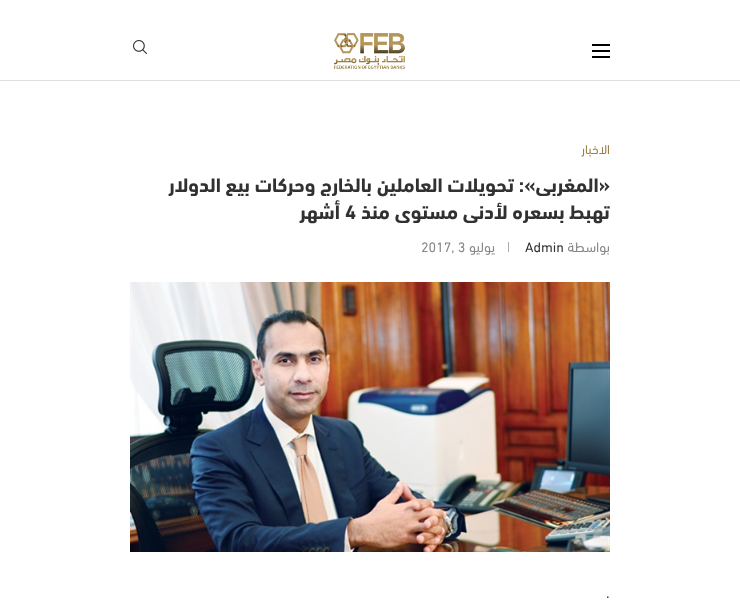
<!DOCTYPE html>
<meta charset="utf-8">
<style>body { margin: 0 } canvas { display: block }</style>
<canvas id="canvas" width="740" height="607"></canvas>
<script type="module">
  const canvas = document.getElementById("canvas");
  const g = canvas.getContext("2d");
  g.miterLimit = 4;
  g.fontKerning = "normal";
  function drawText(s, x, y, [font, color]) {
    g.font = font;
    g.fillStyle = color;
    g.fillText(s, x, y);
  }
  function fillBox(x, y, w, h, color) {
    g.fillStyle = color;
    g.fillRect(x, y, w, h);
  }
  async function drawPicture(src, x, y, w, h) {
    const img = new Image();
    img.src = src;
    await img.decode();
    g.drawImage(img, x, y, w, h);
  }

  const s1 = ["13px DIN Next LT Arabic", "#9B8246"];
  const s2 = ["bold 20px DIN Next LT Arabic", "#313131"];
  const s3 = ["14px DIN Next LT Arabic", "#888888"];
  const s4 = ["14px DIN Next LT Arabic", "#313131"];
  const s5 = ["15px DIN Next LT Arabic", "#313131"];

  fillBox(0, 0, 740, 607, "#FFFFFF");
  fillBox(0, 80, 740, 1, "#DEDEDE");
  fillBox(592, 44, 18, 2, "#000000");
  fillBox(592, 50, 18, 2, "#000000");
  fillBox(592, 56, 18, 2, "#000000");
  await drawPicture("pic1.png", 334, 33, 71, 36);
  await drawPicture("pic2.png", 133, 40, 14, 14);
  g.direction = "rtl";
  drawText("الاخبار", 610, 154, s1);
  drawText("«المغربى»: تحويلات العاملين بالخارج وحركات بيع الدولار", 610, 192, s2);
  drawText("تهبط بسعره لأدنى مستوى منذ", 610, 219, s2);
  g.direction = "ltr";
  drawText("4", 345, 219, s2);
  g.direction = "rtl";
  drawText("أشهر", 340, 219, s2);
  drawText("بواسطة", 610, 252, s3);
  g.direction = "ltr";
  drawText("Admin", 525, 252, s4);
  fillBox(508, 242, 1, 10, "#ACACAC");
  g.direction = "rtl";
  drawText("يوليو", 495, 252, s3);
  g.direction = "ltr";
  drawText("2017, 3", 421, 252, s3);
  await drawPicture("pic3.png", 130, 282, 480, 270);
  drawText(".", 606, 598, s5);
</script>
